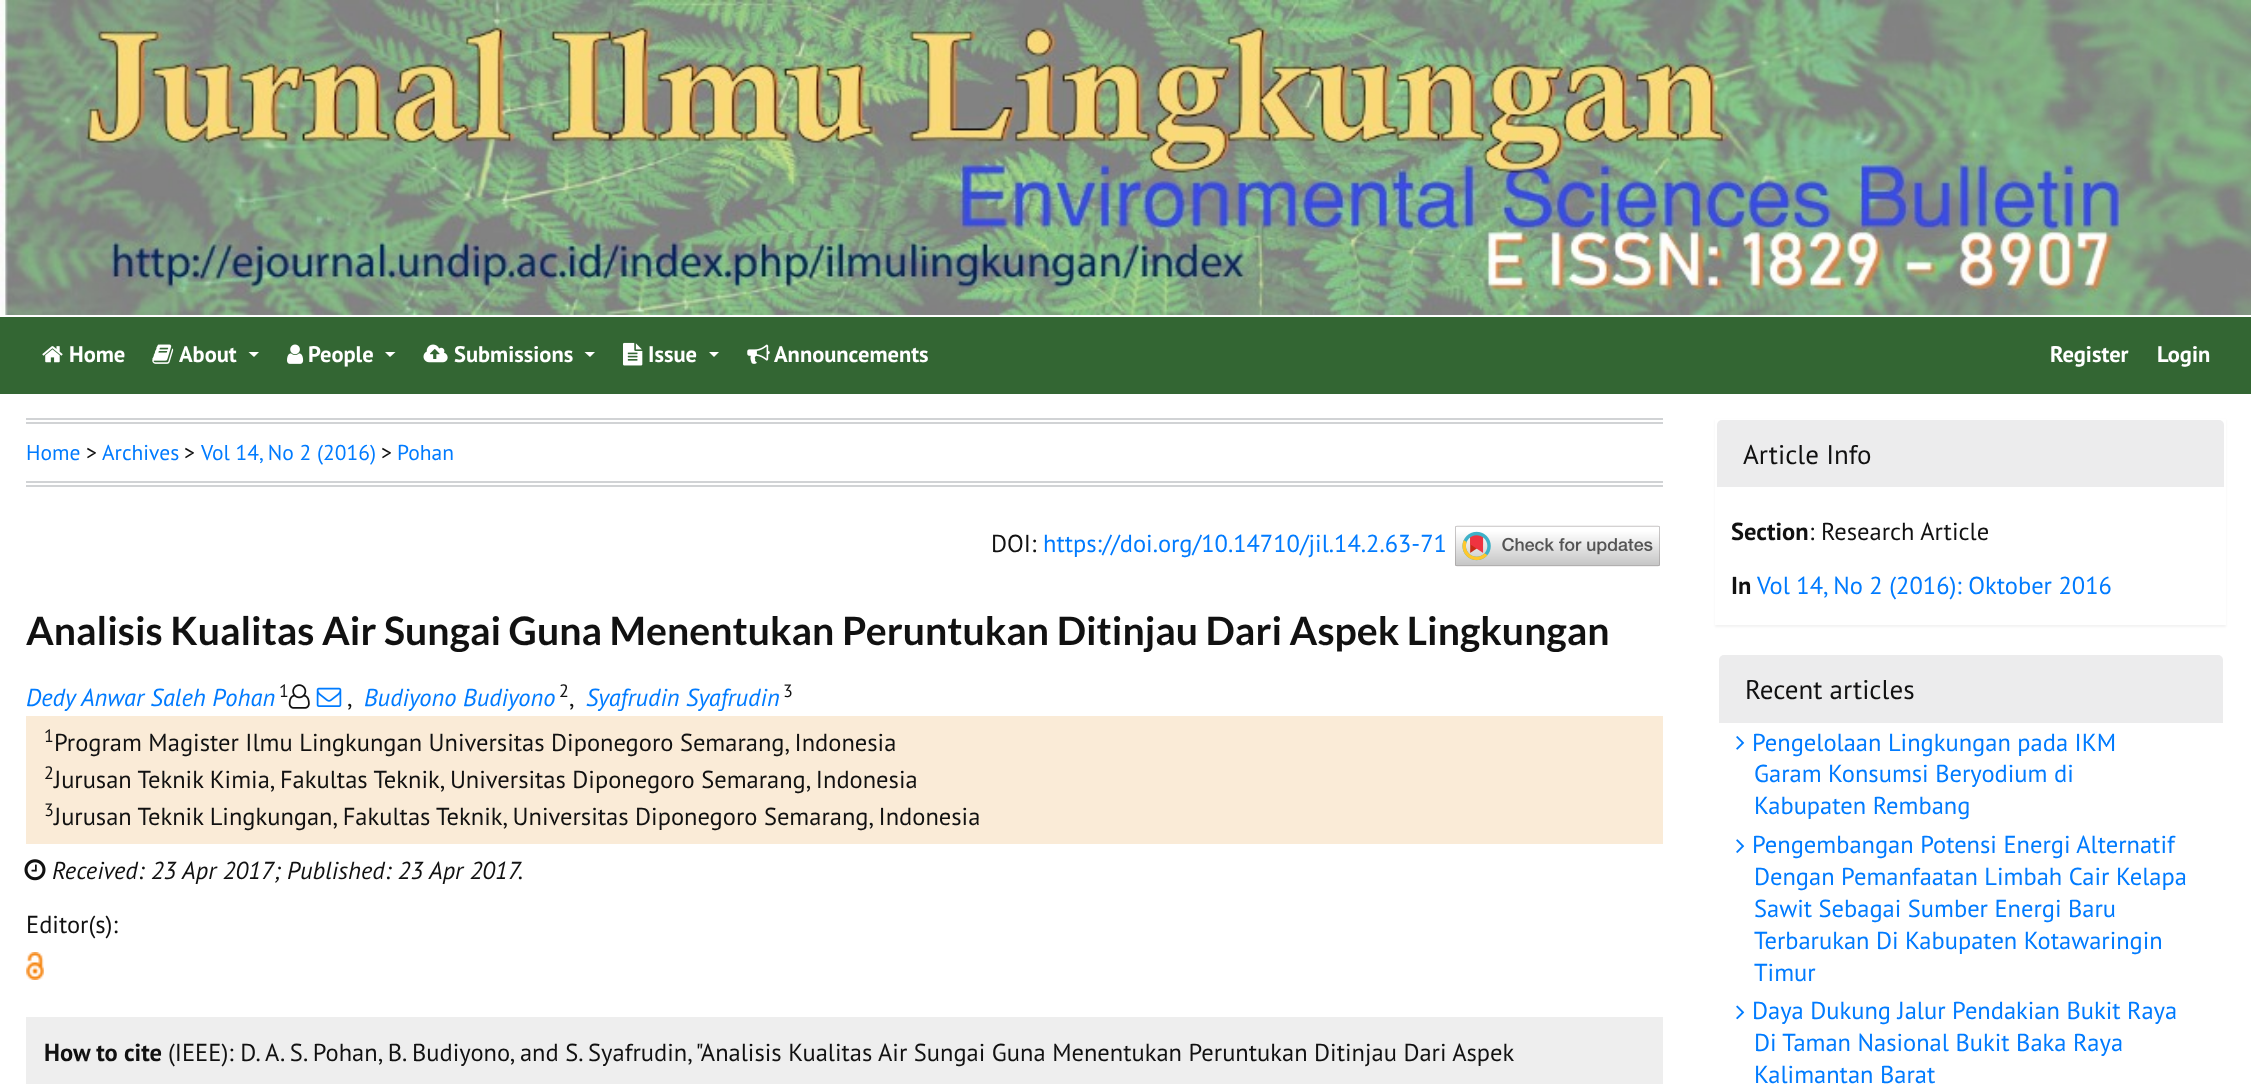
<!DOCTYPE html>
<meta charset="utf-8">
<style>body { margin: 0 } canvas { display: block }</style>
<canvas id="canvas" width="2251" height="1084"></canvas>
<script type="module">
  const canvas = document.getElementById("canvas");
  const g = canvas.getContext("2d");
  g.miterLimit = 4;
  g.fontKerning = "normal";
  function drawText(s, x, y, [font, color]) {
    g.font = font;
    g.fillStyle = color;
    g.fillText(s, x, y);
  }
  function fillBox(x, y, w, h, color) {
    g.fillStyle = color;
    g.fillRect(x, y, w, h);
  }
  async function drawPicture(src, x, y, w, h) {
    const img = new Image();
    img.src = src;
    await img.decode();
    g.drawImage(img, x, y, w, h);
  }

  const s1 = ["bold 22.5px PT Sans", "#FFFFFF"];
  const s2 = ["21.5px PT Sans", "#007BFF"];
  const s3 = ["21.5px PT Sans", "#111111"];
  const s4 = ["24.5px PT Sans", "#111111"];
  const s5 = ["24.5px PT Sans", "#007BFF"];
  const s6 = ["bold 39.2px Lato", "#111111"];
  const s7 = ["italic 24.5px PT Sans", "#007BFF"];
  const s8 = ["18px PT Sans", "#111111"];
  const s9 = ["italic 24.5px PT Sans", "#111111"];
  const s10 = ["bold 24.5px PT Sans", "#111111"];
  const s11 = ["27px PT Sans", "#111111"];

  fillBox(0, 0, 2251, 1084, "#FFFFFF");
  await drawPicture("pic1.png", 0, 0, 2251, 315);
  fillBox(0, 317, 2251, 77, "#336633");
  await drawPicture("pic2.png", 42, 346, 21, 17);
  drawText("Home", 69, 362, s1);
  await drawPicture("pic3.png", 152, 344, 22, 20);
  drawText("About", 179, 362, s1);
  g.beginPath();
  g.moveTo(248.5, 352);
  g.lineTo(259, 352);
  g.lineTo(254, 357);
  g.closePath();
  g.fill();
  await drawPicture("pic4.png", 287, 344, 17, 20);
  drawText("People", 308, 362, s1);
  g.beginPath();
  g.moveTo(385, 352);
  g.lineTo(395.5, 352);
  g.lineTo(390, 357);
  g.closePath();
  g.fill();
  await drawPicture("pic5.png", 423, 344, 25, 19);
  drawText("Submissions", 454, 362, s1);
  g.beginPath();
  g.moveTo(584.5, 352);
  g.lineTo(595, 352);
  g.lineTo(590, 357);
  g.closePath();
  g.fill();
  await drawPicture("pic6.png", 623, 342, 20, 24);
  drawText("Issue", 648, 362, s1);
  g.beginPath();
  g.moveTo(709, 352);
  g.lineTo(719, 352);
  g.lineTo(714, 357);
  g.closePath();
  g.fill();
  await drawPicture("pic7.png", 747, 344, 23, 20);
  drawText("Announcements", 774, 362, s1);
  drawText("Register", 2050, 362, s1);
  drawText("Login", 2157, 362, s1);
  fillBox(26, 418, 1637, 2, "#D1D3D5");
  fillBox(26, 422, 1637, 2, "#D1D3D5");
  fillBox(26, 481, 1637, 2, "#D1D3D5");
  fillBox(26, 485, 1637, 2, "#D1D3D5");
  drawText("Home", 26, 460, s2);
  drawText(">", 86, 460, s3);
  drawText("Archives", 102, 460, s2);
  drawText(">", 184, 460, s3);
  drawText("Vol 14, No 2 (2016)", 201, 460, s2);
  drawText(">", 381, 460, s3);
  drawText("Pohan", 397, 460, s2);
  drawText("DOI:", 991, 552, s4);
  drawText("https://doi.org/10.14710/jil.14.2.63-71", 1043, 552, s5);
  await drawPicture("pic8.png", 1455, 525, 205, 42);
  drawText("Analisis Kualitas Air Sungai Guna Menentukan Peruntukan Ditinjau Dari Aspek Lingkungan", 26, 645, s6);
  drawText("Dedy Anwar Saleh Pohan", 26, 706, s7);
  drawText("1", 279, 697, s8);
  await drawPicture("pic9.png", 288, 684, 22, 25);
  await drawPicture("pic10.png", 316, 687, 26, 20);
  drawText(",", 347, 706, s4);
  drawText("Budiyono Budiyono", 364, 706, s7);
  drawText("2", 559, 697, s8);
  drawText(",", 569, 706, s4);
  drawText("Syafrudin Syafrudin", 586, 706, s7);
  drawText("3", 783, 697, s8);
  fillBox(26, 716, 1637, 128, "#FAEBD7");
  drawText("1", 44, 742, s8);
  drawText("Program Magister Ilmu Lingkungan Universitas Diponegoro Semarang, Indonesia", 54, 751, s4);
  drawText("Jurusan Teknik Kimia, Fakultas Teknik, Universitas Diponegoro Semarang, Indonesia", 54, 788, s4);
  drawText("2", 44, 779, s8);
  drawText("Jurusan Teknik Lingkungan, Fakultas Teknik, Universitas Diponegoro Semarang, Indonesia", 54, 825, s4);
  drawText("3", 44, 816, s8);
  await drawPicture("pic11.png", 24, 859, 22, 22);
  drawText("Received: 23 Apr 2017; Published: 23 Apr 2017.", 52, 879, s9);
  drawText("Editor(s):", 26, 933, s4);
  await drawPicture("pic12.png", 26, 952, 18, 28);
  fillBox(26, 1017, 1637, 67, "#EEEEEE");
  drawText("How to cite", 44, 1061, s10);
  drawText("(IEEE): D.", 168, 1061, s4);
  drawText("A. S. Pohan, B. Budiyono, and S. Syafrudin, \"Analisis Kualitas Air Sungai Guna Menentukan Peruntukan Ditinjau Dari Aspek", 265, 1061, s4);
  g.fillStyle = "rgba(0, 0, 0, 0.05)";
  g.filter = "blur(1px)";
  g.beginPath();
  g.rect(1715, 420, 511, 207);
  g.fill();
  g.filter = "none";
  fillBox(1715, 419, 511, 206, "#FFFFFF");
  g.fillStyle = "#ECECED";
  g.beginPath();
  g.roundRect(1717, 420, 507, 67, [5, 5, 0, 0]);
  g.fill();
  drawText("Article Info", 1743, 464, s11);
  drawText("Section", 1731, 540, s10);
  drawText(": Research Article", 1809, 540, s4);
  drawText("In", 1731, 594, s10);
  drawText("Vol 14, No 2 (2016): Oktober 2016", 1757, 594, s5);
  g.fillStyle = "#ECECED";
  g.beginPath();
  g.roundRect(1719, 655, 504, 68, [5, 5, 0, 0]);
  g.fill();
  drawText("Recent articles", 1745, 699, s11);
  await drawPicture("pic13.png", 1736, 736, 9, 14);
  drawText("Pengelolaan Lingkungan pada IKM", 1752, 751, s5);
  drawText("Garam Konsumsi Beryodium di", 1754, 782, s5);
  drawText("Kabupaten Rembang", 1754, 814, s5);
  await drawPicture("pic14.png", 1736, 839, 9, 14);
  drawText("Pengembangan Potensi Energi Alternatif", 1752, 853, s5);
  drawText("Dengan Pemanfaatan Limbah Cair Kelapa", 1754, 885, s5);
  drawText("Sawit Sebagai Sumber Energi Baru", 1754, 917, s5);
  drawText("Terbarukan Di Kabupaten Kotawaringin", 1754, 949, s5);
  drawText("Timur", 1754, 981, s5);
  await drawPicture("pic15.png", 1736, 1005, 9, 15);
  drawText("Daya Dukung Jalur Pendakian Bukit Raya", 1752, 1019, s5);
  drawText("Di Taman Nasional Bukit Baka Raya", 1754, 1051, s5);
  drawText("Kalimantan Barat", 1754, 1083, s5);
</script>
